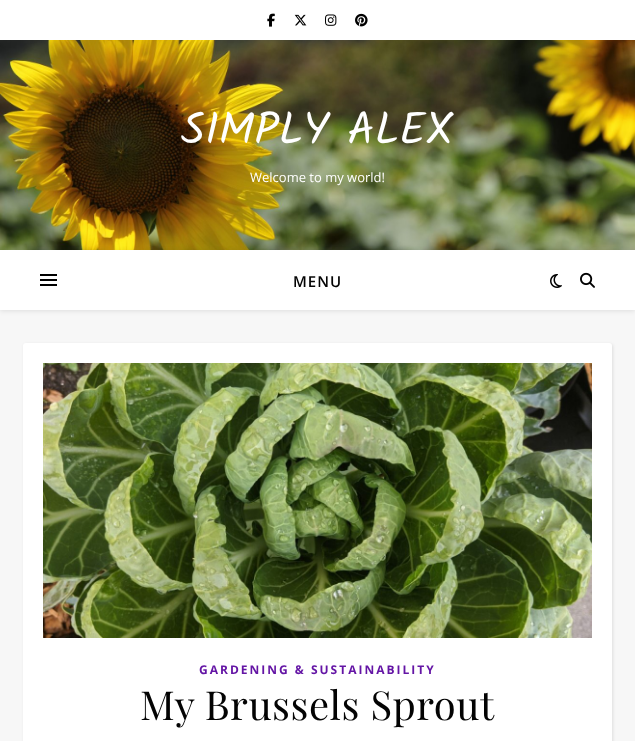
<!DOCTYPE html>
<meta charset="utf-8">
<style>body { margin: 0 } canvas { display: block }</style>
<canvas id="canvas" width="635" height="741"></canvas>
<script type="module">
  const canvas = document.getElementById("canvas");
  const g = canvas.getContext("2d");
  g.miterLimit = 4;
  g.fontKerning = "normal";
  function drawText(s, x, y, [font, color]) {
    g.font = font;
    g.fillStyle = color;
    g.fillText(s, x, y);
  }
  function fillBox(x, y, w, h, color) {
    g.fillStyle = color;
    g.fillRect(x, y, w, h);
  }
  function fillRounded(x, y, w, h, r, color) {
    g.fillStyle = color;
    g.beginPath();
    g.roundRect(x, y, w, h, r);
    g.fill();
  }
  async function drawPicture(src, x, y, w, h) {
    const img = new Image();
    img.src = src;
    await img.decode();
    g.drawImage(img, x, y, w, h);
  }

  const s1 = ["45px Kalam", "#FFFFFF"];
  const s2 = ["13px Open Sans", "#FFFFFF"];
  const s3 = ["600 15px Open Sans", "#030303"];
  const s4 = ["bold 12px Open Sans", "#6415A5"];
  const s5 = ["40px Playfair Display", "#030303"];

  fillBox(0, 0, 635, 741, "#F7F7F7");
  fillBox(0, 0, 635, 40, "#FFFFFF");
  await drawPicture("pic1.png", 267, 13, 8, 14);
  await drawPicture("pic2.png", 294, 14, 13, 12);
  await drawPicture("pic3.png", 325, 14, 12, 12);
  await drawPicture("pic4.png", 355, 13, 13, 14);
  await drawPicture("pic5.png", 0, 40, 635, 210);
  drawText("SIMPLY ALEX", 181, 144, s1);
  drawText("Welcome to my world!", 250, 182, s2);
  g.fillStyle = "rgba(0, 0, 0, 0.1)";
  g.filter = "blur(2.5px)";
  g.beginPath();
  g.rect(0, 251, 635, 60);
  g.fill();
  g.filter = "none";
  fillBox(0, 250, 635, 60, "#FFFFFF");
  fillBox(40, 274, 17, 2, "#000000");
  fillBox(40, 279, 17, 2, "#000000");
  fillBox(40, 284, 17, 2, "#000000");
  g.letterSpacing = "1px";
  drawText("MENU", 293, 287, s3);
  await drawPicture("pic6.png", 550, 274, 12, 14);
  await drawPicture("pic7.png", 580, 272, 15, 16);
  g.fillStyle = "rgba(0, 0, 0, 0.1)";
  g.filter = "blur(1.5px)";
  g.beginPath();
  g.roundRect(24, 344, 589, 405, 3);
  g.fill();
  g.filter = "none";
  fillRounded(23, 343, 589, 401, 3, "#FFFFFF");
  await drawPicture("pic8.png", 43, 363, 549, 275);
  g.letterSpacing = "2px";
  drawText("GARDENING & SUSTAINABILITY", 199, 674, s4);
  g.letterSpacing = "0.5px";
  drawText("My Brussels Sprout", 140, 720, s5);
</script>
